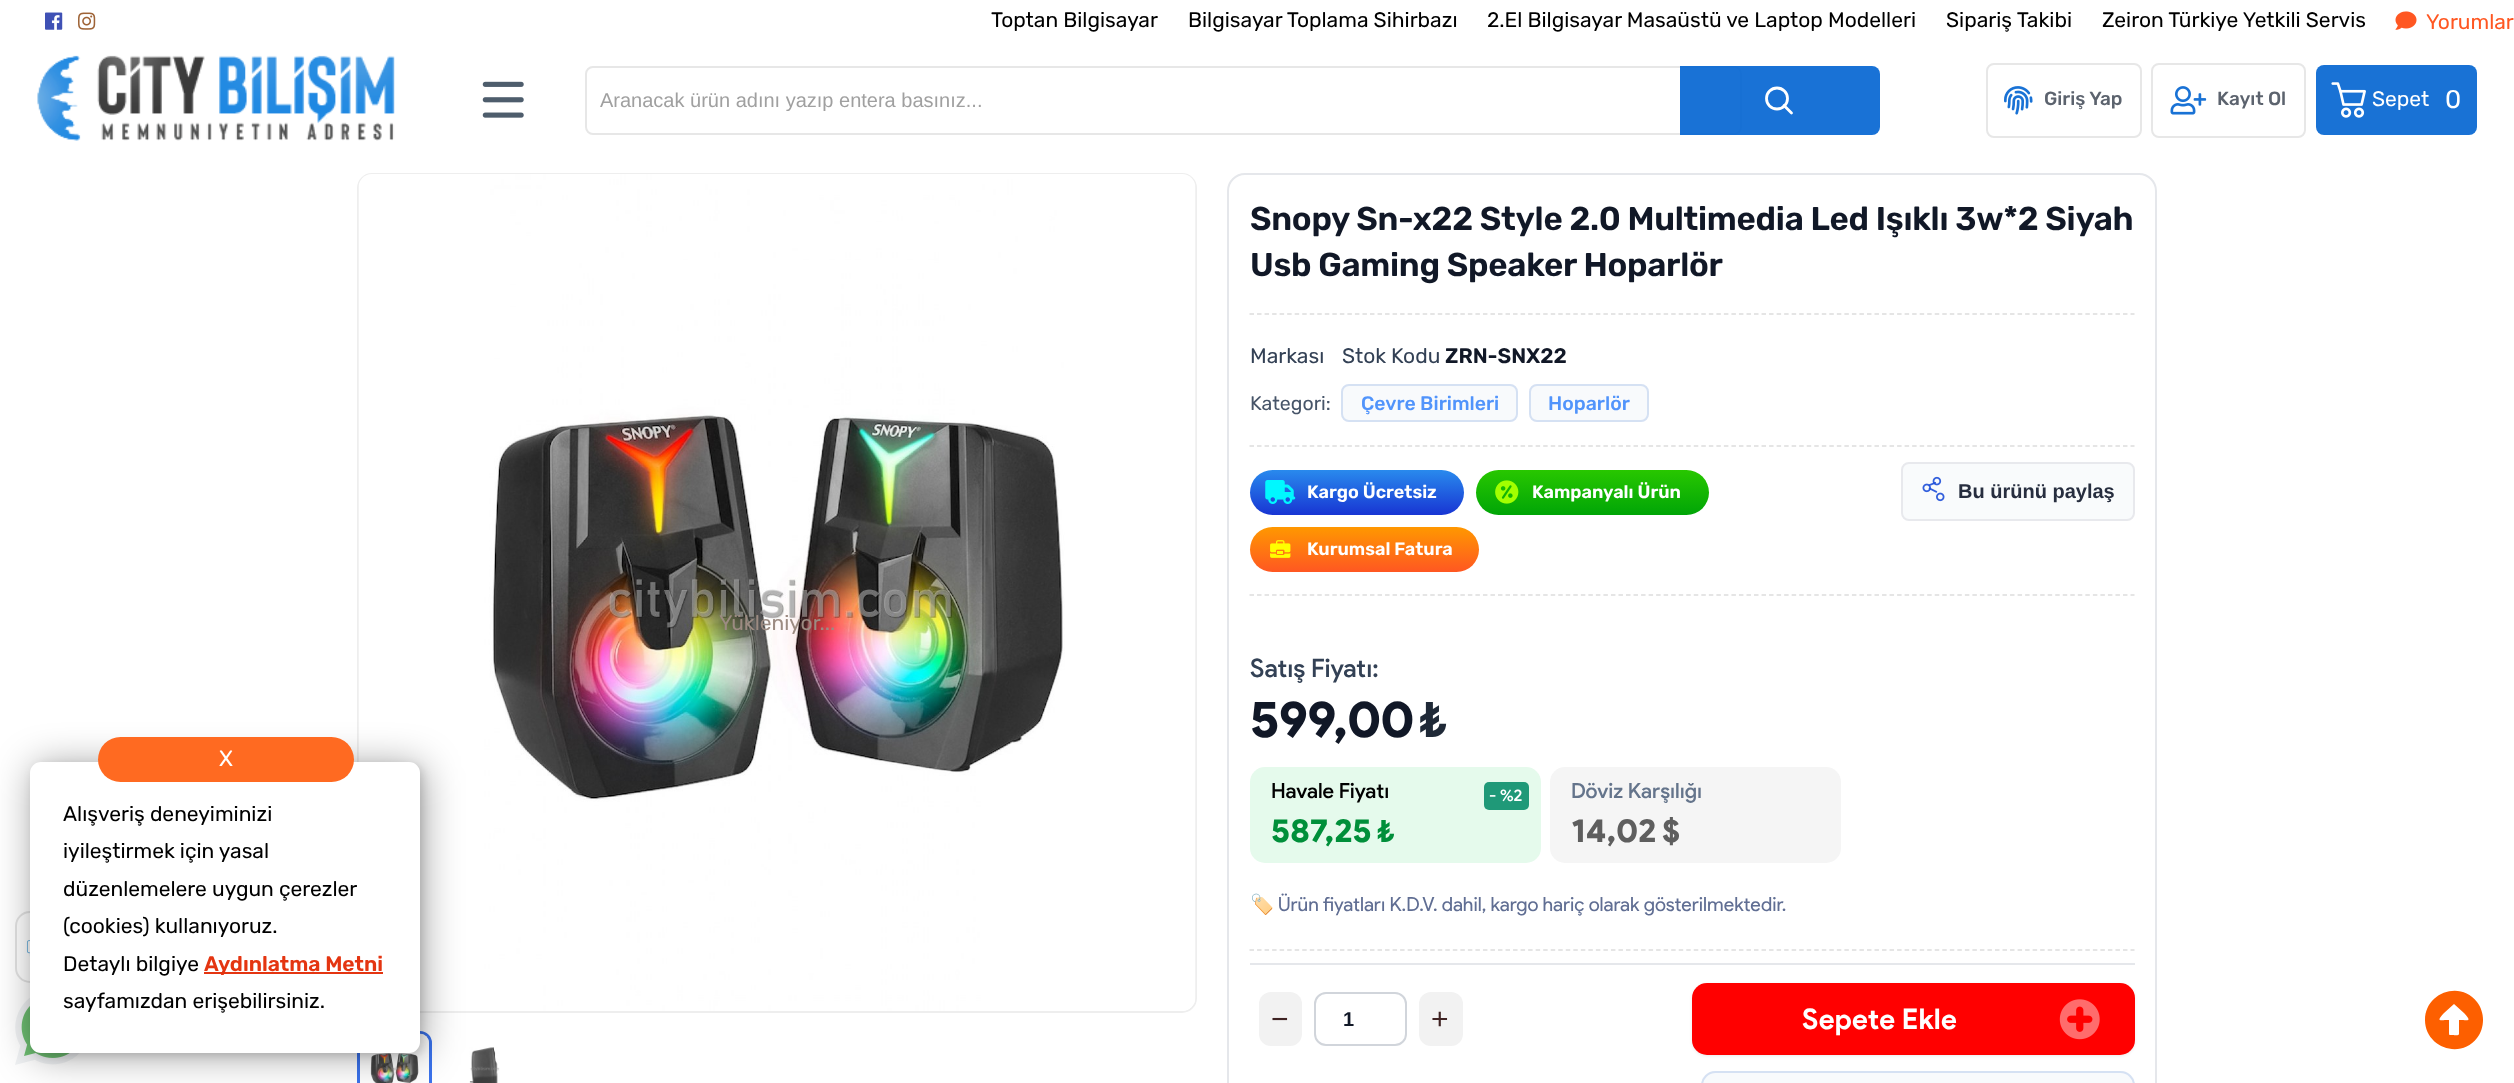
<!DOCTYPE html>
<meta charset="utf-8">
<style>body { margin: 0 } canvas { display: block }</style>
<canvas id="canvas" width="2514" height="1083"></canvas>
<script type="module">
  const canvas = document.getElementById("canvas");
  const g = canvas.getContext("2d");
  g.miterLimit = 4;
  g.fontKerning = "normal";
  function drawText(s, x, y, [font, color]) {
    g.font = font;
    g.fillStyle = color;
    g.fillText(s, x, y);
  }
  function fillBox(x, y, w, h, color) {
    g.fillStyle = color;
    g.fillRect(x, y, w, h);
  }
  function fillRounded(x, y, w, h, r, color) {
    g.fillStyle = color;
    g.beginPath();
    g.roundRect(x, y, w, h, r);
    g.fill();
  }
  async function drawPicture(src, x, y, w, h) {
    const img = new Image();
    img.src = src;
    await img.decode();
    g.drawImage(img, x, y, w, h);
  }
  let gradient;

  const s1 = ["21px Rubik", "#000000"];
  const s2 = ["21px Rubik", "#FF5722"];
  const s3 = ["20px Liberation Sans", "#A0A0A0"];
  const s4 = ["500 19px Rubik", "#5C636E"];
  const s5 = ["21px Rubik", "#FFFFFF"];
  const s6 = ["25.5px Rubik", "#FFFFFF"];
  const s7 = ["22px Rubik", "#FFFFFF"];
  const s8 = ["600 21px Rubik", "#E43511"];
  const s9 = ["21px Rubik", "#9C8B82"];
  const s10 = ["600 33px Rubik", "#111827"];
  const s11 = ["21px Rubik", "#334155"];
  const s12 = ["600 21px Rubik", "#111827"];
  const s13 = ["bold 20px Liberation Sans", "#272E3F"];
  const s14 = ["19.5px Rubik", "#475569"];
  const s15 = ["500 19.5px Rubik", "#5194FB"];
  const s16 = ["600 18px Rubik", "#FFFFFF"];
  const s17 = ["500 25.5px Product Sans", "#334155"];
  const s18 = ["900 51px Product Sans", "#111827"];
  const s19 = ["900 51px Product Sans", "#1F2937"];
  const s20 = ["500 21px Product Sans", "#000000"];
  const s21 = ["500 16.5px Product Sans", "#FFFFFF"];
  const s22 = ["900 33px Product Sans", "#008F3A"];
  const s23 = ["900 32px Product Sans", "#008F3A"];
  const s24 = ["500 21px Product Sans", "#64748B"];
  const s25 = ["900 33px Product Sans", "#5E5E5E"];
  const s26 = ["900 32px Product Sans", "#5E5E5E"];
  const s27 = ["19.5px Noto Color Emoji", "#606E93"];
  const s28 = ["19.5px Product Sans", "#606E93"];
  const s29 = ["30px Liberation Sans", "#3F2323"];
  const s30 = ["bold 20px Liberation Sans", "#111827"];
  const s31 = ["bold 28.5px Product Sans", "#FFFFFF"];

  fillBox(0, 0, 2514, 1083, "#FFFFFF");
  await drawPicture("pic1.png", 45, 12, 18, 18);
  await drawPicture("pic2.png", 78, 12, 18, 18);
  drawText("Toptan Bilgisayar", 991, 27, s1);
  drawText("Bilgisayar Toplama Sihirbazı", 1188, 27, s1);
  drawText("2.El Bilgisayar Masaüstü ve Laptop Modelleri", 1487, 27, s1);
  drawText("Sipariş Takibi", 1946, 27, s1);
  drawText("Zeiron Türkiye Yetkili Servis", 2102, 27, s1);
  await drawPicture("pic3.png", 2395, 11, 22, 19);
  drawText("Yorumlar", 2426, 29, s2);
  await drawPicture("pic4.png", 37, 55, 358, 86);
  await drawPicture("pic5.png", 482, 81, 42, 37);
  g.beginPath();
  g.roundRect(586, 67, 1155, 67, 7);
  g.strokeStyle = "#E7E7E7";
  g.lineWidth = 2;
  g.stroke();
  g.save();
  g.beginPath();
  g.rect(600, 89, 1127, 22);
  g.clip();
  drawText("Aranacak ürün adını yazıp entera basınız...", 600, 107, s3);
  g.restore();
  g.fillStyle = "rgba(0, 99, 209, 0.9)";
  g.beginPath();
  g.roundRect(1680, 66, 200, 69, [0, 8, 8, 0]);
  g.fill();
  g.beginPath();
  g.arc(1777, 98.5, 10.5, 0, Math.PI * 2);
  g.strokeStyle = "#FFFFFF";
  g.lineWidth = 2.8;
  g.stroke();
  g.beginPath();
  g.moveTo(1791.5, 113);
  g.lineTo(1784, 105.5);
  g.lineCap = "round";
  g.lineJoin = "round";
  g.stroke();
  g.beginPath();
  g.roundRect(1987, 64, 154, 73, 7);
  g.strokeStyle = "#E7E7E7";
  g.lineWidth = 2;
  g.lineJoin = "miter";
  g.stroke();
  await drawPicture("pic6.png", 2004, 86, 29, 29);
  drawText("Giriş Yap", 2044, 105, s4);
  g.beginPath();
  g.roundRect(2152, 64, 153, 73, 7);
  g.stroke();
  await drawPicture("pic7.png", 2170, 86, 37, 29);
  drawText("Kayıt Ol", 2217, 105, s4);
  fillRounded(2316, 65, 161, 70, 8, "#1972D5");
  await drawPicture("pic8.png", 2331, 82, 35, 36);
  drawText("Sepet", 2372, 106, s5);
  drawText("0", 2445, 108, s6);
  g.beginPath();
  g.roundRect(358, 174, 838, 838, 14);
  g.strokeStyle = "#EEEEEE";
  g.stroke();
  await drawPicture("pic9.png", 358, 174, 838, 837);
  g.beginPath();
  g.roundRect(358.5, 1032.5, 72, 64, 10.5);
  g.strokeStyle = "#3B73ED";
  g.lineWidth = 3;
  g.stroke();
  await drawPicture("pic10.png", 360, 1033, 69, 50);
  await drawPicture("pic11.png", 469, 1047, 31, 36);
  g.beginPath();
  g.roundRect(16, 912, 186, 70, 14);
  g.strokeStyle = "#E4E4E4";
  g.lineWidth = 2;
  g.stroke();
  await drawPicture("pic17.png", 26, 940, 4, 17);
  await drawPicture("pic18.png", 15, 997, 65, 68);
  g.fillStyle = "rgba(0, 0, 0, 0.37)";
  g.filter = "blur(19px)";
  g.beginPath();
  g.roundRect(33, 765, 390, 291, 11);
  g.fill();
  g.filter = "none";
  g.fillStyle = "rgba(0, 0, 0, 0.12)";
  g.filter = "blur(4px)";
  g.beginPath();
  g.roundRect(33, 765, 390, 291, 11);
  g.fill();
  g.filter = "none";
  g.fillStyle = "#FFFFFF";
  g.beginPath();
  g.roundRect(31.5, 763.5, 387, 288, 9.5);
  g.fill();
  g.strokeStyle = "#FFFFFF";
  g.lineWidth = 3;
  g.stroke();
  fillRounded(98, 737, 256, 45, 22.5, "#FF6A21");
  drawText("X", 219, 766, s7);
  drawText("Alışveriş deneyiminizi", 63, 821, s1);
  drawText("iyileştirmek için yasal", 63, 858, s1);
  drawText("düzenlemelere uygun çerezler", 63, 896, s1);
  drawText("(cookies) kullanıyoruz.", 63, 933, s1);
  drawText("Detaylı bilgiye", 63, 971, s1);
  fillBox(204, 972, 179, 2, "#E43511");
  drawText("Aydınlatma Metni", 204, 971, s8);
  drawText("sayfamızdan erişebilirsiniz.", 63, 1008, s1);
  drawText("Yükleniyor...", 719, 630, s9);
  g.beginPath();
  g.roundRect(1228, 174, 928, 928, 17);
  g.strokeStyle = "#E5E7EB";
  g.lineWidth = 2;
  g.stroke();
  g.beginPath();
  g.moveTo(1249.5, 314);
  g.lineTo(2134.5, 314);
  g.strokeStyle = "#DDDDDD";
  g.lineWidth = 1.5;
  g.lineCap = "butt";
  g.setLineDash([4.5, 3.03]);
  g.stroke();
  g.letterSpacing = "-0.27px";
  drawText("Snopy Sn-x22 Style 2.0 Multimedia Led Işıklı 3w*2 Siyah", 1250, 230, s10);
  drawText("Usb Gaming Speaker Hoparlör", 1250, 276, s10);
  g.letterSpacing = "0px";
  drawText("Markası", 1250, 363, s11);
  drawText("Stok Kodu", 1342, 363, s11);
  drawText("ZRN-SNX22", 1445, 363, s12);
  g.fillStyle = "#F9FBFC";
  g.beginPath();
  g.roundRect(1902, 463, 232, 57, 7);
  g.fill();
  g.strokeStyle = "#E8E9ED";
  g.lineWidth = 2;
  g.setLineDash([]);
  g.stroke();
  await drawPicture("pic12.png", 1922, 476, 23, 26);
  drawText("Bu ürünü paylaş", 1958, 498, s13);
  g.beginPath();
  g.moveTo(1249.5, 446);
  g.lineTo(2134.5, 446);
  g.strokeStyle = "#DDDDDD";
  g.lineWidth = 1.5;
  g.setLineDash([4.5, 3.03]);
  g.stroke();
  drawText("Kategori:", 1250, 410, s14);
  fillRounded(1341, 384, 177, 38, 8, "#F8FAFC");
  g.beginPath();
  g.roundRect(1342, 385, 175, 36, 7);
  g.strokeStyle = "rgba(146, 175, 227, 0.34)";
  g.lineWidth = 2;
  g.setLineDash([]);
  g.stroke();
  drawText("Çevre Birimleri", 1361, 410, s15);
  fillRounded(1529, 384, 120, 38, 8, "#F8FAFC");
  g.beginPath();
  g.roundRect(1530, 385, 118, 36, 7);
  g.stroke();
  drawText("Hoparlör", 1548, 410, s15);
  gradient = g.createLinearGradient(1357, 515, 1357, 470);
  gradient.addColorStop(0, "#1835D3");
  gradient.addColorStop(1, "#298AED");
  g.fillStyle = gradient;
  g.beginPath();
  g.roundRect(1250, 470, 214, 45, 22.5);
  g.fill();
  await drawPicture("pic13.png", 1265, 480, 31, 24);
  drawText("Kargo Ücretsiz", 1307, 498, s16);
  gradient = g.createLinearGradient(1592, 515, 1592, 470);
  gradient.addColorStop(0, "#00A507");
  gradient.addColorStop(1, "#28C700");
  g.fillStyle = gradient;
  g.beginPath();
  g.roundRect(1476, 470, 233, 45, 22.5);
  g.fill();
  await drawPicture("pic14.png", 1495, 480, 24, 24);
  drawText("Kampanyalı Ürün", 1532, 498, s16);
  gradient = g.createLinearGradient(1364, 572, 1364, 527);
  gradient.addColorStop(0, "#FF5722");
  gradient.addColorStop(1, "#FF9800");
  g.fillStyle = gradient;
  g.beginPath();
  g.roundRect(1250, 527, 229, 45, 22.5);
  g.fill();
  await drawPicture("pic15.png", 1270, 540, 21, 18);
  drawText("Kurumsal Fatura", 1307, 555, s16);
  g.beginPath();
  g.moveTo(1249.5, 595);
  g.lineTo(2134.5, 595);
  g.strokeStyle = "#DDDDDD";
  g.lineWidth = 1.5;
  g.setLineDash([4.5, 3.03]);
  g.stroke();
  g.beginPath();
  g.moveTo(1249.5, 950);
  g.lineTo(2134.5, 950);
  g.stroke();
  drawText("Satış Fiyatı:", 1250, 677, s17);
  g.letterSpacing = "-1px";
  drawText("599,00", 1250, 737, s18);
  g.letterSpacing = "0px";
  drawText("₺", 1419, 737, s19);
  fillRounded(1250, 767, 291, 96, 15, "#E5FAEC");
  drawText("Havale Fiyatı", 1271, 798, s20);
  fillRounded(1484, 782, 45, 28, 5, "#1F9978");
  drawText("- %2", 1489, 801, s21);
  drawText("587,25", 1271, 842, s22);
  drawText("₺", 1377, 842, s23);
  fillRounded(1550, 767, 291, 96, 15, "#F5F5F5");
  drawText("Döviz Karşılığı", 1571, 798, s24);
  drawText("14,02", 1571, 842, s25);
  drawText("$", 1662, 842, s26);
  drawText("🏷️", 1250, 911, s27);
  drawText("Ürün fiyatları K.D.V. dahil, kargo hariç olarak gösterilmektedir.", 1278, 911, s28);
  fillBox(1250, 963, 885, 2, "#E5E7EB");
  fillRounded(1259, 992, 43, 54, 12, "#F2F2F2");
  drawText("−", 1271, 1029, s29);
  g.beginPath();
  g.roundRect(1315, 993, 91, 52, 11);
  g.strokeStyle = "#D1D5DB";
  g.lineWidth = 2;
  g.setLineDash([]);
  g.stroke();
  drawText("1", 1343, 1026, s30);
  fillRounded(1419, 992, 44, 54, 12, "#F2F2F2");
  drawText("+", 1431, 1029, s29);
  g.fillStyle = "rgba(0, 0, 0, 0.08)";
  g.filter = "blur(1.5px)";
  g.beginPath();
  g.roundRect(1692, 984, 443, 72, 15);
  g.fill();
  g.filter = "none";
  fillRounded(1692, 983, 443, 72, 15, "#FF0000");
  g.letterSpacing = "0.25px";
  drawText("Sepete Ekle", 1802, 1029, s31);
  await drawPicture("pic16.png", 2059, 999, 41, 41);
  fillRounded(1701, 1071, 434, 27, 15, "#F8FAFC");
  g.beginPath();
  g.roundRect(1702, 1072, 432, 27, 14);
  g.strokeStyle = "rgba(146, 175, 227, 0.34)";
  g.stroke();
  g.fillStyle = "#FD5F00";
  g.beginPath();
  g.moveTo(2425, 1020);
  g.bezierCurveTo(2425, 993, 2460, 980, 2477, 1002);
  g.bezierCurveTo(2481, 1007, 2483, 1014, 2483, 1020);
  g.bezierCurveTo(2483, 1026, 2481, 1033, 2477, 1038);
  g.bezierCurveTo(2460, 1060, 2425, 1047, 2425, 1020);
  g.closePath();
  g.moveTo(2459, 1034);
  g.lineTo(2459, 1020);
  g.bezierCurveTo(2469, 1020, 2472, 1022, 2464, 1013);
  g.lineTo(2454, 1004);
  g.lineTo(2444, 1013);
  g.bezierCurveTo(2436, 1022, 2439, 1020, 2449, 1020);
  g.lineTo(2449, 1031);
  g.bezierCurveTo(2449, 1036, 2449, 1035, 2453, 1035);
  g.bezierCurveTo(2454, 1035, 2459, 1036, 2459, 1034);
  g.closePath();
  g.fill();
</script>
